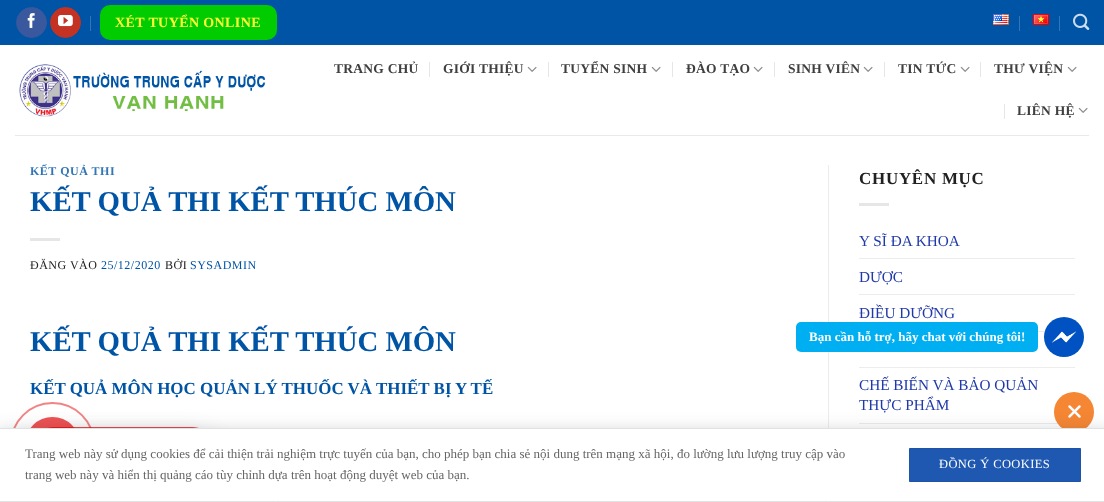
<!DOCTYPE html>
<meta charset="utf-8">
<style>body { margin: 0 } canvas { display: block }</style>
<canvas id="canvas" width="1104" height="502"></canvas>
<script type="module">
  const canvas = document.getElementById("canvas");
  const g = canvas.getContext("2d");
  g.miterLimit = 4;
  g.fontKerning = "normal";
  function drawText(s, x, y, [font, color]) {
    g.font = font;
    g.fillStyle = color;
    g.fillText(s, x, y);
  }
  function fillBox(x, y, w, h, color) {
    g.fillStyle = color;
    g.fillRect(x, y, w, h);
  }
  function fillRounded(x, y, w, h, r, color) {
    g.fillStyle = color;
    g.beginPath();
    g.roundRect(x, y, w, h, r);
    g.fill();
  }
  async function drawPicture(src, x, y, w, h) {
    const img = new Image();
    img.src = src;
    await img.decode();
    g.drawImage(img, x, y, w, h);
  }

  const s1 = ["bold 14px Liberation Serif", "#FFFF33"];
  const s2 = ["bold 13.5px Liberation Serif", "#3F3F3F"];
  const s3 = ["bold 12px Liberation Serif", "#3376B7"];
  const s4 = ["bold 28.8px Liberation Serif", "#0054A5"];
  const s5 = ["12px Liberation Serif", "#212121"];
  const s6 = ["12px Liberation Serif", "#0054A5"];
  const s7 = ["bold 16.95px Liberation Serif", "#0054A5"];
  const s8 = ["bold 16.95px Liberation Serif", "#212121"];
  const s9 = ["15.25px Liberation Serif", "#2039A8"];
  const s10 = ["bold 13px Liberation Serif", "#FFFFFF"];
  const s11 = ["13px Liberation Serif", "#666666"];
  const s12 = ["12.5px Liberation Serif", "#FFFFFF"];

  fillBox(0, 0, 1104, 502, "#FFFFFF");
  fillBox(0, 0, 1104, 45, "#0054A5");
  g.fillStyle = "#3A589D";
  g.beginPath();
  g.arc(31.5, 22.5, 15, 0, Math.PI * 2);
  g.fill();
  g.strokeStyle = "#3A589D";
  g.stroke();
  await drawPicture("pic1.png", 27, 13, 8, 15);
  g.fillStyle = "#C33223";
  g.beginPath();
  g.arc(65.5, 22.5, 15, 0, Math.PI * 2);
  g.fill();
  g.strokeStyle = "#C33223";
  g.stroke();
  await drawPicture("pic2.png", 58, 15, 15, 12);
  fillBox(90, 16, 1, 15, "#3376B7");
  fillRounded(100, 5, 177, 35, 10, "#00CC00");
  g.letterSpacing = "0.4px";
  drawText("XÉT TUYỂN ONLINE", 115, 27, s1);
  await drawPicture("pic3.png", 993, 14, 16, 11);
  fillBox(1019, 16, 1, 15, "#3376B7");
  await drawPicture("pic4.png", 1033, 14, 16, 11);
  fillBox(1059, 16, 1, 15, "#3376B7");
  await drawPicture("pic5.png", 1073, 13, 17, 17);
  await drawPicture("pic6.png", 19, 64, 247, 53);
  g.letterSpacing = "0.25px";
  drawText("TRANG CHỦ", 334, 73, s2);
  fillBox(429, 62, 1, 15, "#E6E6E6");
  drawText("GIỚI THIỆU", 443, 73, s2);
  await drawPicture("pic7.png", 527, 66, 10, 6);
  fillBox(548, 62, 1, 15, "#E6E6E6");
  drawText("TUYỂN SINH", 561, 73, s2);
  await drawPicture("pic7.png", 651, 66, 10, 6);
  fillBox(672, 62, 1, 15, "#E6E6E6");
  drawText("ĐÀO TẠO", 686, 73, s2);
  await drawPicture("pic7.png", 753, 66, 10, 6);
  fillBox(774, 62, 1, 15, "#E6E6E6");
  drawText("SINH VIÊN", 788, 73, s2);
  await drawPicture("pic7.png", 863, 66, 10, 6);
  fillBox(884, 62, 1, 15, "#E6E6E6");
  drawText("TIN TỨC", 898, 73, s2);
  await drawPicture("pic7.png", 960, 66, 10, 6);
  fillBox(980, 62, 1, 15, "#E6E6E6");
  drawText("THƯ VIỆN", 994, 73, s2);
  await drawPicture("pic7.png", 1067, 66, 10, 6);
  fillBox(1004, 104, 1, 15, "#E6E6E6");
  drawText("LIÊN HỆ", 1017, 115, s2);
  await drawPicture("pic7.png", 1078, 107, 10, 6);
  fillBox(15, 135, 1074, 1, "#E9E9E9");
  g.letterSpacing = "0.5px";
  drawText("KẾT QUẢ THI", 30, 175, s3);
  g.letterSpacing = "0px";
  drawText("KẾT QUẢ THI KẾT THÚC MÔN", 30, 211, s4);
  fillBox(30, 238, 30, 3, "#E6E6E6");
  g.letterSpacing = "0.5px";
  drawText("ĐĂNG VÀO", 30, 269, s5);
  drawText("25/12/2020", 101, 269, s6);
  drawText("BỞI", 165, 269, s5);
  drawText("SYSADMIN", 190, 269, s6);
  g.letterSpacing = "0px";
  drawText("KẾT QUẢ THI KẾT THÚC MÔN", 30, 351, s4);
  drawText("KẾT QUẢ MÔN HỌC QUẢN LÝ THUỐC VÀ THIẾT BỊ Y TẾ", 30, 394, s7);
  fillBox(828, 165, 1, 263, "#ECECEC");
  g.letterSpacing = "0.75px";
  drawText("CHUYÊN MỤC", 859, 184, s8);
  fillBox(859, 203, 30, 3, "#E6E6E6");
  fillBox(859, 258, 216, 1, "#ECECEC");
  g.letterSpacing = "0px";
  drawText("Y SĨ ĐA KHOA", 859, 246, s9);
  fillBox(859, 294, 216, 1, "#ECECEC");
  drawText("DƯỢC", 859, 282, s9);
  fillBox(1038, 331, 7, 1, "#ECECEC");
  drawText("ĐIỀU DƯỠNG", 859, 318, s9);
  fillBox(859, 367, 216, 1, "#ECECEC");
  fillBox(859, 423, 199, 1, "#ECECEC");
  drawText("CHẾ BIẾN VÀ BẢO QUẢN", 859, 390, s9);
  drawText("THỰC PHẨM", 859, 410, s9);
  fillRounded(796, 322, 242, 30, 5, "#00AFF2");
  drawText("Bạn cần hỗ trợ, hãy chat với chúng tôi!", 809, 341, s10);
  g.fillStyle = "#0052C2";
  g.beginPath();
  g.arc(1064, 337, 20, 0, Math.PI * 2);
  g.fill();
  await drawPicture("pic8.png", 1051, 331, 26, 12);
  g.fillStyle = "#F58634";
  g.beginPath();
  g.arc(1074, 412, 20, 0, Math.PI * 2);
  g.fill();
  await drawPicture("pic9.png", 1068, 405, 13, 13);
  g.fillStyle = "rgba(0, 0, 0, 0.25)";
  g.filter = "blur(14px)";
  g.beginPath();
  g.roundRect(33, 441, 180, 40, 20);
  g.fill();
  g.filter = "none";
  fillRounded(33, 427, 180, 40, 20, "rgba(230, 8, 8, 0.75)");
  g.beginPath();
  g.arc(52.5, 444.5, 41.5, 0, Math.PI * 2);
  g.strokeStyle = "rgba(230, 8, 8, 0.5)";
  g.lineWidth = 2;
  g.stroke();
  g.fillStyle = "rgba(230, 8, 8, 0.7)";
  g.beginPath();
  g.arc(52.5, 444.5, 27.5, 0, Math.PI * 2);
  g.fill();
  g.fillStyle = "rgba(36, 47, 66, 0.31)";
  g.filter = "blur(10px)";
  g.beginPath();
  g.rect(-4, 434, 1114, 62);
  g.fill();
  g.filter = "none";
  g.fillStyle = "#FFFFFF";
  g.beginPath();
  g.rect(-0.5, 428.5, 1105, 73);
  g.fill();
  g.strokeStyle = "#E1E1E1";
  g.lineWidth = 1;
  g.stroke();
  drawText("Trang web này sử dụng cookies để cải thiện trải nghiệm trực tuyến của bạn, cho phép bạn chia sẻ nội dung trên mạng xã hội, đo lường lưu lượng truy cập vào", 25, 458, s11);
  drawText("trang web này và hiển thị quảng cáo tùy chỉnh dựa trên hoạt động duyệt web của bạn.", 25, 479, s11);
  g.fillStyle = "#1E58B1";
  g.beginPath();
  g.rect(909.5, 448.5, 171, 33);
  g.fill();
  g.strokeStyle = "#1D54A8";
  g.stroke();
  g.letterSpacing = "0.4px";
  drawText("ĐỒNG Ý COOKIES", 939, 468, s12);
</script>
